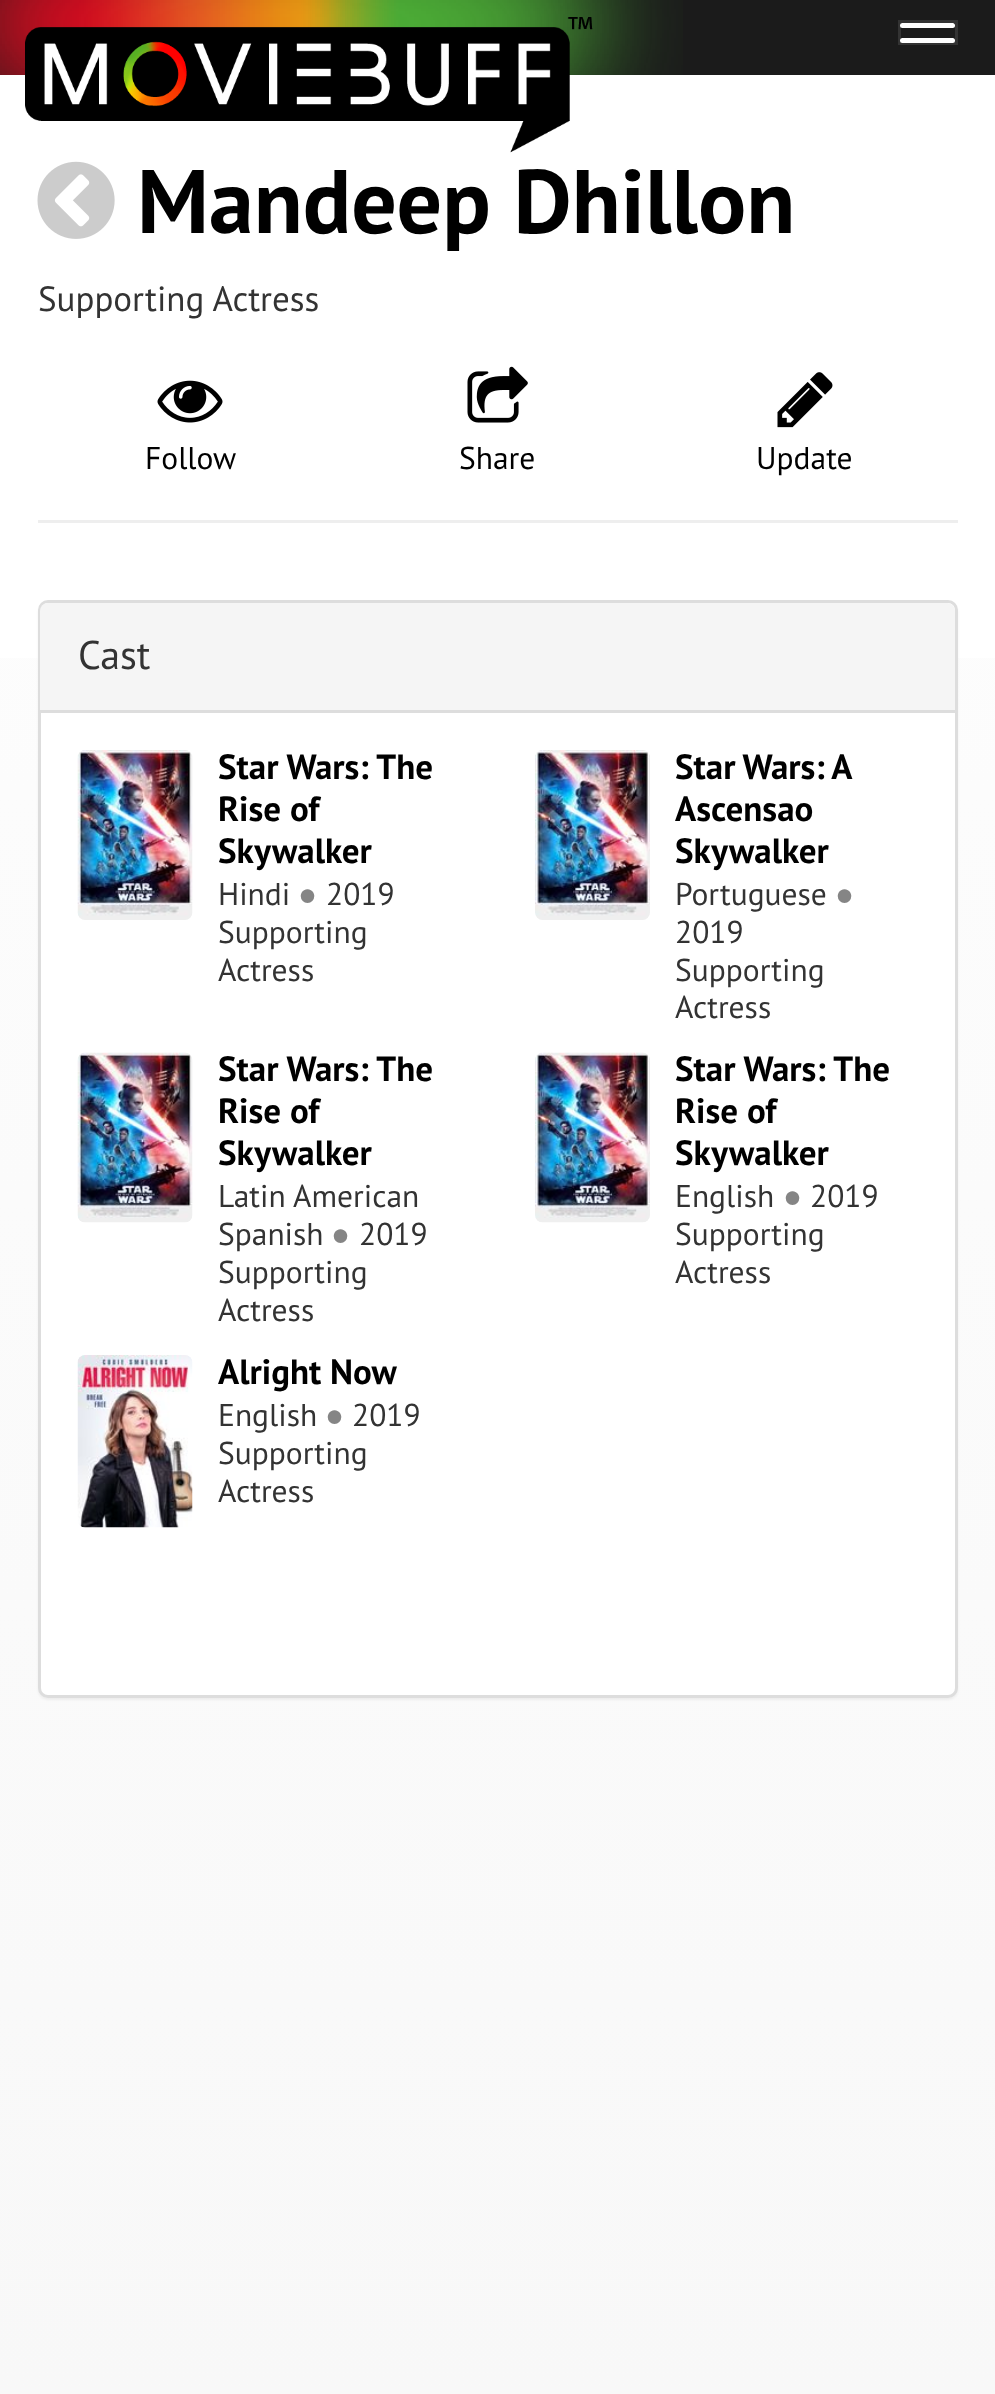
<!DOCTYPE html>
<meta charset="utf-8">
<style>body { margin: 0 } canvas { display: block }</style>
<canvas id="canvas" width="995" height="2394"></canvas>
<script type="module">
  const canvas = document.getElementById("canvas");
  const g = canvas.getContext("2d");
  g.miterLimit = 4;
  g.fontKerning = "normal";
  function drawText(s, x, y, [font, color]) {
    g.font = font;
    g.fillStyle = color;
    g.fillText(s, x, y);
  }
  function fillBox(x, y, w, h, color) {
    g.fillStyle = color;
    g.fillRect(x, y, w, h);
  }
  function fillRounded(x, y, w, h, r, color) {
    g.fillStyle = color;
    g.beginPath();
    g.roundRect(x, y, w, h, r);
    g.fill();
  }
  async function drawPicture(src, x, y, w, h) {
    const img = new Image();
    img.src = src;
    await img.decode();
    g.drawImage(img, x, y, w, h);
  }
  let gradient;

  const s1 = ["bold 90px PT Sans", "#000000"];
  const s2 = ["35px PT Sans", "#333333"];
  const s3 = ["31.5px PT Sans", "#000000"];
  const s4 = ["40px PT Sans", "#333333"];
  const s5 = ["bold 35px PT Sans", "#000000"];
  const s6 = ["31.5px PT Sans", "#333333"];
  const s7 = ["31.5px Liberation Serif", "#858585"];

  fillBox(0, 0, 995, 2394, "#FFFFFF");
  gradient = g.createLinearGradient(497, 0, 498, 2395);
  gradient.addColorStop(0, "#FFFFFF");
  gradient.addColorStop(0.33, "#FCFCFC");
  gradient.addColorStop(0.67, "#FAFAFA");
  gradient.addColorStop(1, "#F8F8F8");
  g.fillStyle = gradient;
  g.fillRect(0, 658, 995, 1736);
  fillBox(0, 0, 995, 75, "#1B1B1B");
  await drawPicture("pic1.png", 0, 0, 683, 75);
  await drawPicture("pic2.png", 25, 17, 568, 136);
  g.strokeStyle = "#333333";
  g.lineWidth = 3;
  g.strokeRect(899.5, 21.5, 57, 22);
  fillRounded(900, 23, 55, 5, 2.5, "#FFFFFF");
  fillRounded(900, 38, 55, 5, 2.5, "#FFFFFF");
  await drawPicture("pic3.png", 37, 161, 78, 78);
  drawText("Mandeep Dhillon", 137, 233, s1);
  drawText("Supporting Actress", 38, 311, s2);
  await drawPicture("pic4.png", 157, 380, 66, 43);
  drawText("Follow", 145, 469, s3);
  await drawPicture("pic5.png", 467, 366, 61, 57);
  drawText("Share", 459, 469, s3);
  await drawPicture("pic6.png", 777, 372, 56, 56);
  drawText("Update", 756, 469, s3);
  fillBox(38, 520, 920, 3, "#EEEEEE");
  g.fillStyle = "rgba(0, 0, 0, 0.05)";
  g.filter = "blur(1px)";
  g.beginPath();
  g.roundRect(38, 603, 920, 1097, 10);
  g.fill();
  g.filter = "none";
  g.fillStyle = "#FFFFFF";
  g.beginPath();
  g.roundRect(39.5, 601.5, 917, 1095, 8.5);
  g.fill();
  g.strokeStyle = "#DDDDDD";
  g.stroke();
  g.fillStyle = "#F5F5F5";
  g.beginPath();
  g.roundRect(40, 603, 915, 110, [8, 8, 0, 0]);
  g.fill();
  fillBox(40, 710, 915, 3, "#DDDDDD");
  drawText("Cast", 78, 669, s4);
  await drawPicture("pic7.png", 77, 750, 116, 170);
  drawText("Star Wars: The", 218, 779, s5);
  drawText("Rise of", 218, 821, s5);
  drawText("Skywalker", 218, 863, s5);
  drawText("Hindi", 218, 905, s6);
  drawText("●", 298, 905, s7);
  drawText("2019", 326, 905, s6);
  drawText("Supporting", 218, 943, s6);
  drawText("Actress", 218, 981, s6);
  await drawPicture("pic8.png", 535, 750, 115, 170);
  g.wordSpacing = "-1px";
  drawText("Star Wars: A", 675, 779, s5);
  g.wordSpacing = "0px";
  drawText("Ascensao", 675, 821, s5);
  drawText("Skywalker", 675, 863, s5);
  drawText("Portuguese", 675, 905, s6);
  drawText("●", 835, 905, s7);
  drawText("2019", 675, 943, s6);
  drawText("Supporting", 675, 981, s6);
  drawText("Actress", 675, 1018, s6);
  await drawPicture("pic9.png", 77, 1052, 116, 171);
  drawText("Star Wars: The", 218, 1081, s5);
  drawText("Rise of", 218, 1123, s5);
  drawText("Skywalker", 218, 1165, s5);
  drawText("Latin American", 218, 1207, s6);
  drawText("Spanish", 218, 1245, s6);
  drawText("●", 331, 1245, s7);
  drawText("2019", 359, 1245, s6);
  drawText("Supporting", 218, 1283, s6);
  drawText("Actress", 218, 1321, s6);
  await drawPicture("pic10.png", 535, 1052, 115, 171);
  drawText("Star Wars: The", 675, 1081, s5);
  drawText("Rise of", 675, 1123, s5);
  drawText("Skywalker", 675, 1165, s5);
  drawText("English", 675, 1207, s6);
  drawText("●", 783, 1207, s7);
  drawText("2019", 810, 1207, s6);
  drawText("Supporting", 675, 1245, s6);
  drawText("Actress", 675, 1283, s6);
  await drawPicture("pic11.png", 77, 1355, 116, 173);
  drawText("Alright Now", 218, 1384, s5);
  drawText("English", 218, 1426, s6);
  drawText("●", 325, 1426, s7);
  drawText("2019", 352, 1426, s6);
  drawText("Supporting", 218, 1464, s6);
  drawText("Actress", 218, 1502, s6);
</script>
